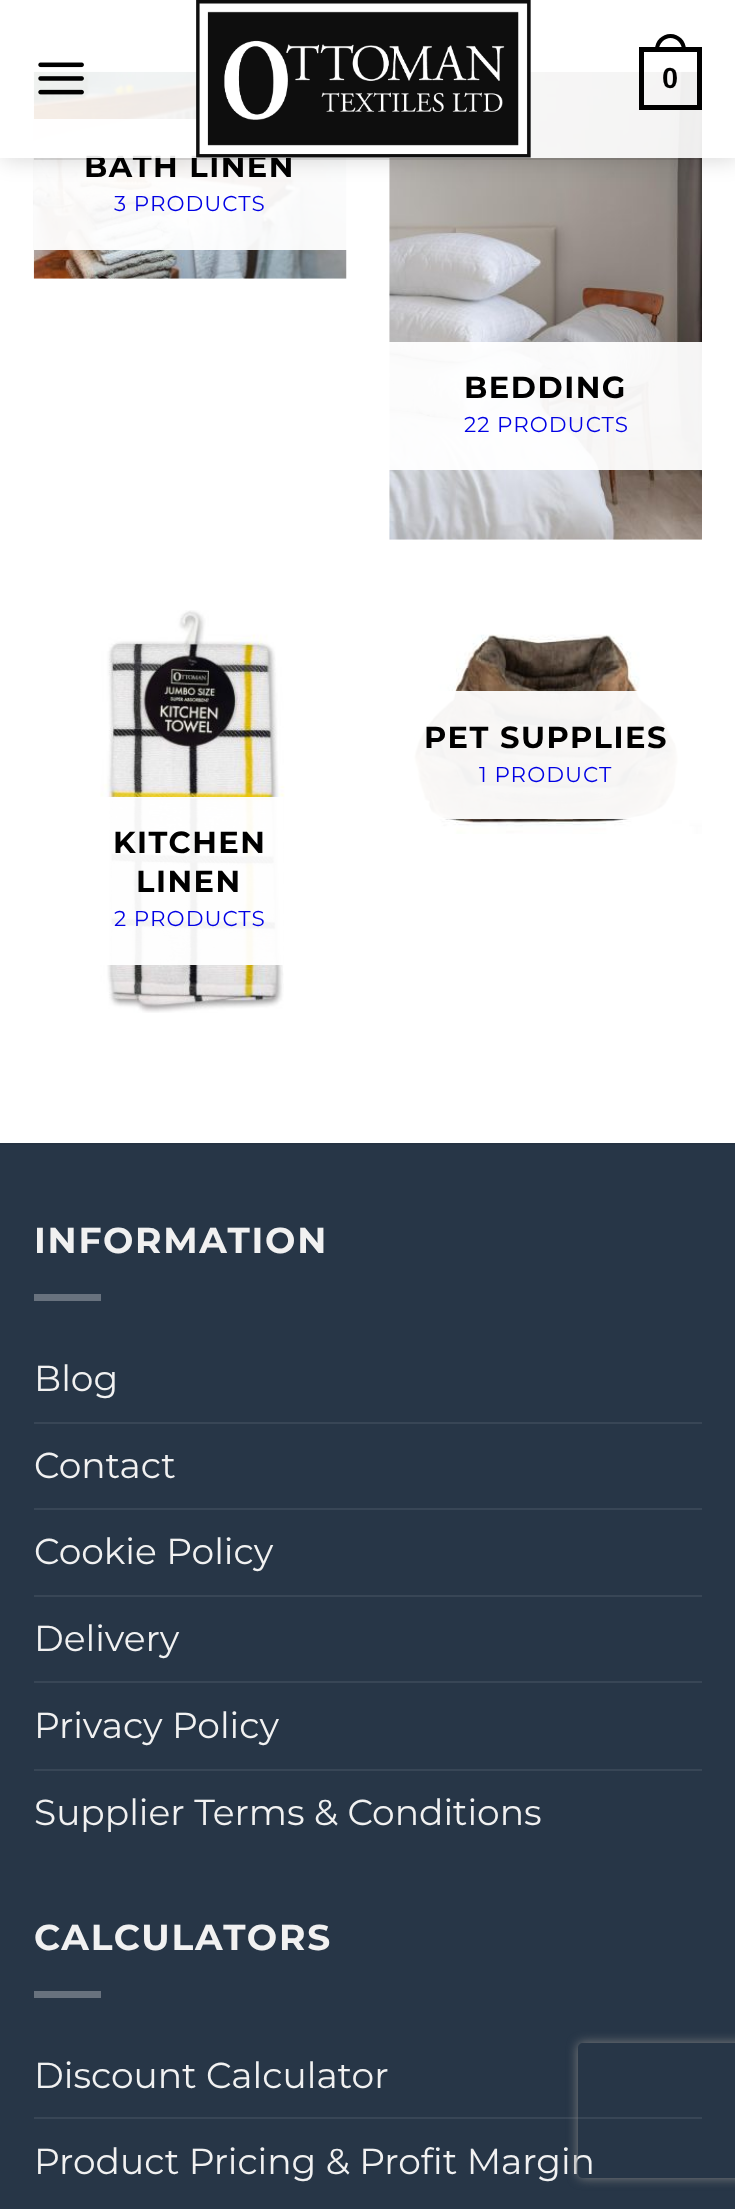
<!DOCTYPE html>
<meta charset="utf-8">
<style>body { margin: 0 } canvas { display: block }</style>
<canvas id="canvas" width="735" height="2209"></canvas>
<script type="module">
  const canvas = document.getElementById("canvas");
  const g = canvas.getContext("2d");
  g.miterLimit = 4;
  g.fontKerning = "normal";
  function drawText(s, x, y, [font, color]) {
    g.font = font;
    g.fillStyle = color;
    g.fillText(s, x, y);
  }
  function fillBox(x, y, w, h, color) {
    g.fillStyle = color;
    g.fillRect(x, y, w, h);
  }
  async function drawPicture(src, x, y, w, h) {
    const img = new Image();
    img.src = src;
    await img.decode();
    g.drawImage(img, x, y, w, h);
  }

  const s1 = ["bold 30.5px Montserrat", "#000000"];
  const s2 = ["bold 29px Liberation Sans", "#000000"];
  const s3 = ["21.5px Montserrat", "#0101E4"];
  const s4 = ["bold 36px Montserrat", "#F1F1F1"];
  const s5 = ["36px Montserrat", "#F1F1F1"];

  fillBox(0, 0, 735, 2209, "#FFFFFF");
  await drawPicture("pic3.png", 33, 71, 314, 208);
  fillBox(34, 119, 313, 131, "rgba(255, 255, 255, 0.95)");
  await drawPicture("pic4.png", 389, 71, 313, 469);
  g.save();
  g.beginPath();
  g.moveTo(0, 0);
  g.lineTo(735, 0);
  g.lineTo(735, 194);
  g.lineTo(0, 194);
  g.closePath();
  g.moveTo(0, 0);
  g.lineTo(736, 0);
  g.lineTo(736, 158);
  g.lineTo(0, 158);
  g.closePath();
  g.clip("evenodd");
  g.fillStyle = "rgba(0, 0, 0, 0.15)";
  g.filter = "blur(11px)";
  g.beginPath();
  g.rect(2, 2, 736, 158);
  g.fill();
  g.filter = "none";
  g.restore();
  g.letterSpacing = "1.5px";
  drawText("BATH LINEN", 84, 177, s1);
  fillBox(0, 71, 735, 87, "rgba(255, 255, 255, 0.9)");
  await drawPicture("pic1.png", 38, 62, 46, 33);
  await drawPicture("pic2.png", 196, 0, 335, 158);
  g.strokeStyle = "#000000";
  g.lineWidth = 5;
  g.strokeRect(641.5, 49.5, 58, 58);
  g.fillStyle = "#000000";
  g.beginPath();
  g.moveTo(670.5, 34);
  g.bezierCurveTo(679, 34, 686, 41, 686, 49.5);
  g.lineTo(686, 52);
  g.lineTo(655, 52);
  g.lineTo(655, 49.5);
  g.bezierCurveTo(655, 41, 662, 34, 670.5, 34);
  g.closePath();
  g.moveTo(670.5, 38);
  g.bezierCurveTo(676.5, 38, 682, 43.5, 682, 49.5);
  g.lineTo(682, 52);
  g.lineTo(659, 52);
  g.lineTo(659, 49.5);
  g.bezierCurveTo(659, 43.5, 664.5, 38, 670.5, 38);
  g.closePath();
  g.fill("evenodd");
  g.letterSpacing = "0px";
  drawText("0", 662, 88, s2);
  fillBox(34, 158, 668, 2, "rgba(0, 0, 0, 0.1)");
  g.letterSpacing = "1px";
  drawText("3 PRODUCTS", 114, 211, s3);
  fillBox(389, 342, 313, 128, "rgba(255, 255, 255, 0.95)");
  g.letterSpacing = "1.5px";
  drawText("BEDDING", 464, 398, s1);
  g.letterSpacing = "1px";
  drawText("22 PRODUCTS", 464, 432, s3);
  await drawPicture("pic5.png", 389, 634, 313, 200);
  fillBox(389, 691, 313, 128, "rgba(255, 255, 255, 0.95)");
  g.letterSpacing = "1.5px";
  drawText("PET SUPPLIES", 424, 748, s1);
  g.letterSpacing = "1px";
  drawText("1 PRODUCT", 479, 782, s3);
  await drawPicture("pic6.png", 100, 610, 185, 403);
  fillBox(100, 797, 183, 168, "rgba(255, 255, 255, 0.95)");
  g.letterSpacing = "1.5px";
  drawText("KITCHEN", 113, 853, s1);
  drawText("LINEN", 136, 892, s1);
  g.letterSpacing = "1px";
  drawText("2 PRODUCTS", 114, 926, s3);
  fillBox(0, 1145, 735, 1064, "#273647");
  fillBox(0, 1143, 735, 2, "#253343");
  g.letterSpacing = "1.75px";
  drawText("INFORMATION", 34, 1253, s4);
  fillBox(34, 1294, 67, 7, "#68727E");
  g.letterSpacing = "0px";
  drawText("Blog", 34, 1391, s5);
  fillBox(34, 1422, 668, 2, "#384656");
  drawText("Contact", 34, 1478, s5);
  fillBox(34, 1508, 668, 2, "#384656");
  drawText("Cookie Policy", 34, 1564, s5);
  fillBox(34, 1595, 668, 2, "#384656");
  drawText("Delivery", 34, 1651, s5);
  fillBox(34, 1681, 668, 2, "#384656");
  drawText("Privacy Policy", 34, 1738, s5);
  fillBox(34, 1769, 668, 2, "#384656");
  drawText("Supplier Terms & Conditions", 34, 1825, s5);
  g.letterSpacing = "1.75px";
  drawText("CALCULATORS", 34, 1950, s4);
  fillBox(34, 1991, 67, 7, "#68727E");
  g.letterSpacing = "0px";
  drawText("Discount Calculator", 34, 2088, s5);
  fillBox(34, 2117, 668, 2, "#384656");
  drawText("Product Pricing & Profit Margin", 34, 2174, s5);
  g.save();
  g.beginPath();
  g.moveTo(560, 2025);
  g.lineTo(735, 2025);
  g.lineTo(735, 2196);
  g.lineTo(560, 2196);
  g.closePath();
  g.moveTo(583, 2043);
  g.lineTo(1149, 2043);
  g.bezierCurveTo(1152, 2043, 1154, 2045, 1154, 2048);
  g.lineTo(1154, 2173);
  g.bezierCurveTo(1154, 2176, 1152, 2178, 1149, 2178);
  g.lineTo(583, 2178);
  g.bezierCurveTo(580, 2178, 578, 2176, 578, 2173);
  g.lineTo(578, 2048);
  g.bezierCurveTo(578, 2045, 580, 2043, 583, 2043);
  g.closePath();
  g.clip("evenodd");
  g.fillStyle = "#808080";
  g.filter = "blur(5.5px)";
  g.beginPath();
  g.roundRect(578, 2043, 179, 135, 5);
  g.fill();
  g.filter = "none";
  g.restore();
</script>
